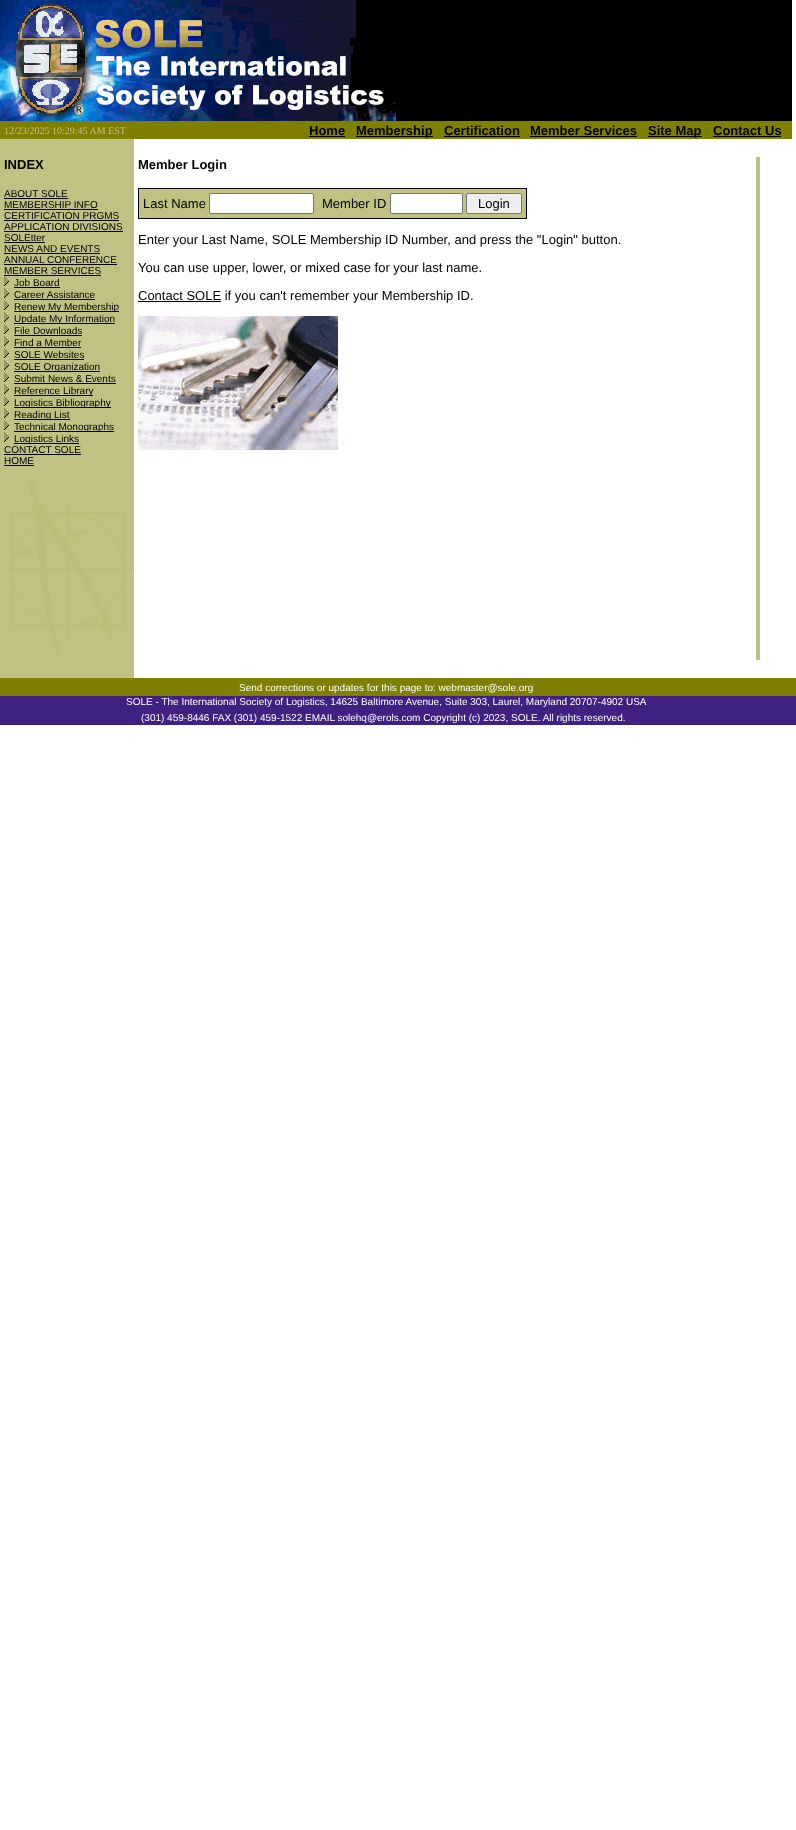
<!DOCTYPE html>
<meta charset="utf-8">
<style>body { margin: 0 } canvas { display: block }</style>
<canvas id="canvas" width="796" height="1830"></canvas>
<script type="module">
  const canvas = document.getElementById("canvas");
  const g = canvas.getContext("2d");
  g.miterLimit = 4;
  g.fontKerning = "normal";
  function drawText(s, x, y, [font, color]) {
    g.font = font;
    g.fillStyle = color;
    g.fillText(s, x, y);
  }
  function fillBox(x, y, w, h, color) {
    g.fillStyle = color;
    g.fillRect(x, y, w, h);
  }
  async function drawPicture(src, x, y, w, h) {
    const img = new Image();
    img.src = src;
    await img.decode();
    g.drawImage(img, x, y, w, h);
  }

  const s1 = ["10px Liberation Serif", "#C1C184"];
  const s2 = ["bold 13px Liberation Sans", "#000000"];
  const s3 = ["13px Liberation Sans", "#000000"];
  const s4 = ["10px Liberation Sans", "#000000"];
  const s5 = ["10px Liberation Sans", "#FFFFFF"];

  fillBox(0, 0, 796, 1830, "#FFFFFF");
  fillBox(396, 0, 396, 121, "#000000");
  await drawPicture("pic1.png", 0, 0, 396, 121);
  fillBox(0, 121, 792, 18, "#808000");
  drawText("12/23/2025 10:29:45 AM EST", 4, 134, s1);
  drawText("Home", 309, 135, s2);
  fillBox(309, 136, 36, 1, "#000000");
  fillBox(356, 136, 77, 1, "#000000");
  drawText("Membership", 356, 135, s2);
  drawText("Certification", 444, 135, s2);
  fillBox(444, 136, 76, 1, "#000000");
  drawText("Member Services", 530, 135, s2);
  fillBox(530, 136, 107, 1, "#000000");
  fillBox(648, 136, 54, 1, "#000000");
  drawText("Site Map", 648, 135, s2);
  drawText("Contact Us", 713, 135, s2);
  fillBox(713, 136, 68, 1, "#000000");
  fillBox(0, 139, 134, 18, "#C1C184");
  fillBox(0, 157, 134, 503, "#C1C184");
  drawText("Member Login", 138, 169, s2);
  fillBox(138, 188, 389, 31, "#000000");
  fillBox(139, 189, 387, 29, "#C1C184");
  drawText("Last Name", 143, 208, s3);
  g.fillStyle = "#FFFFFF";
  g.beginPath();
  g.roundRect(209.5, 193.5, 104, 20, 1.5);
  g.fill();
  g.strokeStyle = "#767676";
  g.stroke();
  drawText("Member ID", 322, 208, s3);
  g.fillStyle = "#FFFFFF";
  g.beginPath();
  g.roundRect(390.5, 193.5, 72, 20, 1.5);
  g.fill();
  g.stroke();
  g.fillStyle = "#EFEFEF";
  g.beginPath();
  g.roundRect(466.5, 193.5, 55, 20, 1.5);
  g.fill();
  g.stroke();
  drawText("Login", 478, 208, s3);
  drawText("Enter your Last Name, SOLE Membership ID Number, and press the \"Login\" button.", 138, 244, s3);
  drawText("You can use upper, lower, or mixed case for your last name.", 138, 272, s3);
  fillBox(138, 301, 83, 1, "#000000");
  drawText("Contact SOLE if you can't remember your Membership ID.", 138, 300, s3);
  await drawPicture("pic2.png", 138, 316, 200, 134);
  fillBox(756, 157, 4, 503, "#C1C184");
  drawText("INDEX", 4, 169, s2);
  drawText("ABOUT SOLE", 4, 197, s4);
  fillBox(4, 198, 64, 1, "#000000");
  drawText("MEMBERSHIP INFO", 4, 208, s4);
  fillBox(4, 209, 94, 1, "#000000");
  drawText("CERTIFICATION PRGMS", 4, 219, s4);
  fillBox(4, 220, 115, 1, "#000000");
  drawText("APPLICATION DIVISIONS", 4, 230, s4);
  fillBox(4, 231, 119, 1, "#000000");
  drawText("SOLEtter", 4, 241, s4);
  fillBox(4, 242, 41, 1, "#000000");
  drawText("NEWS AND EVENTS", 4, 252, s4);
  fillBox(4, 253, 96, 1, "#000000");
  drawText("ANNUAL CONFERENCE", 4, 263, s4);
  fillBox(4, 264, 113, 1, "#000000");
  drawText("MEMBER SERVICES", 4, 274, s4);
  fillBox(4, 275, 97, 1, "#000000");
  await drawPicture("pic3.png", 4, 276, 5, 10);
  drawText("Job Board", 14, 286, s4);
  fillBox(14, 287, 46, 1, "#000000");
  await drawPicture("pic3.png", 4, 288, 5, 10);
  drawText("Career Assistance", 14, 298, s4);
  fillBox(14, 299, 81, 1, "#000000");
  await drawPicture("pic3.png", 4, 300, 5, 10);
  fillBox(14, 311, 105, 1, "#000000");
  drawText("Renew My Membership", 14, 310, s4);
  await drawPicture("pic3.png", 4, 312, 5, 10);
  fillBox(14, 323, 101, 1, "#000000");
  drawText("Update My Information", 14, 322, s4);
  await drawPicture("pic3.png", 4, 324, 5, 10);
  drawText("File Downloads", 14, 334, s4);
  fillBox(14, 335, 68, 1, "#000000");
  await drawPicture("pic3.png", 4, 336, 5, 10);
  drawText("Find a Member", 14, 346, s4);
  fillBox(14, 347, 67, 1, "#000000");
  await drawPicture("pic3.png", 4, 348, 5, 10);
  drawText("SOLE Websites", 14, 358, s4);
  fillBox(14, 359, 70, 1, "#000000");
  await drawPicture("pic3.png", 4, 360, 5, 10);
  fillBox(14, 371, 86, 1, "#000000");
  drawText("SOLE Organization", 14, 370, s4);
  await drawPicture("pic3.png", 4, 372, 5, 10);
  drawText("Submit News & Events", 14, 382, s4);
  fillBox(14, 383, 102, 1, "#000000");
  await drawPicture("pic3.png", 4, 384, 5, 10);
  fillBox(14, 395, 79, 1, "#000000");
  drawText("Reference Library", 14, 394, s4);
  await drawPicture("pic3.png", 4, 396, 5, 10);
  fillBox(14, 407, 97, 1, "#000000");
  drawText("Logistics Bibliography", 14, 406, s4);
  await drawPicture("pic3.png", 4, 408, 5, 10);
  fillBox(14, 419, 56, 1, "#000000");
  drawText("Reading List", 14, 418, s4);
  await drawPicture("pic3.png", 4, 420, 5, 10);
  fillBox(14, 431, 100, 1, "#000000");
  drawText("Technical Monographs", 14, 430, s4);
  await drawPicture("pic3.png", 4, 432, 5, 10);
  fillBox(14, 443, 65, 1, "#000000");
  drawText("Logistics Links", 14, 442, s4);
  drawText("CONTACT SOLE", 4, 453, s4);
  fillBox(4, 454, 77, 1, "#000000");
  drawText("HOME", 4, 464, s4);
  fillBox(4, 465, 30, 1, "#000000");
  await drawPicture("pic4.png", 4, 483, 130, 177);
  fillBox(0, 660, 134, 18, "#C1C184");
  fillBox(0, 678, 796, 18, "#808000");
  drawText("Send corrections or updates for this page to: webmaster@sole.org", 239, 691, s5);
  fillBox(0, 696, 796, 29, "#402080");
  drawText("SOLE - The International Society of Logistics, 14625 Baltimore Avenue, Suite 303, Laurel, Maryland 20707-4902 USA", 126, 705, s5);
  drawText("(301) 459-8446 FAX (301) 459-1522 EMAIL solehq@erols.com Copyright (c) 2023, SOLE. All rights reserved.", 141, 721, s5);
  fillBox(629, 720, 1, 1, "#514968");
</script>
